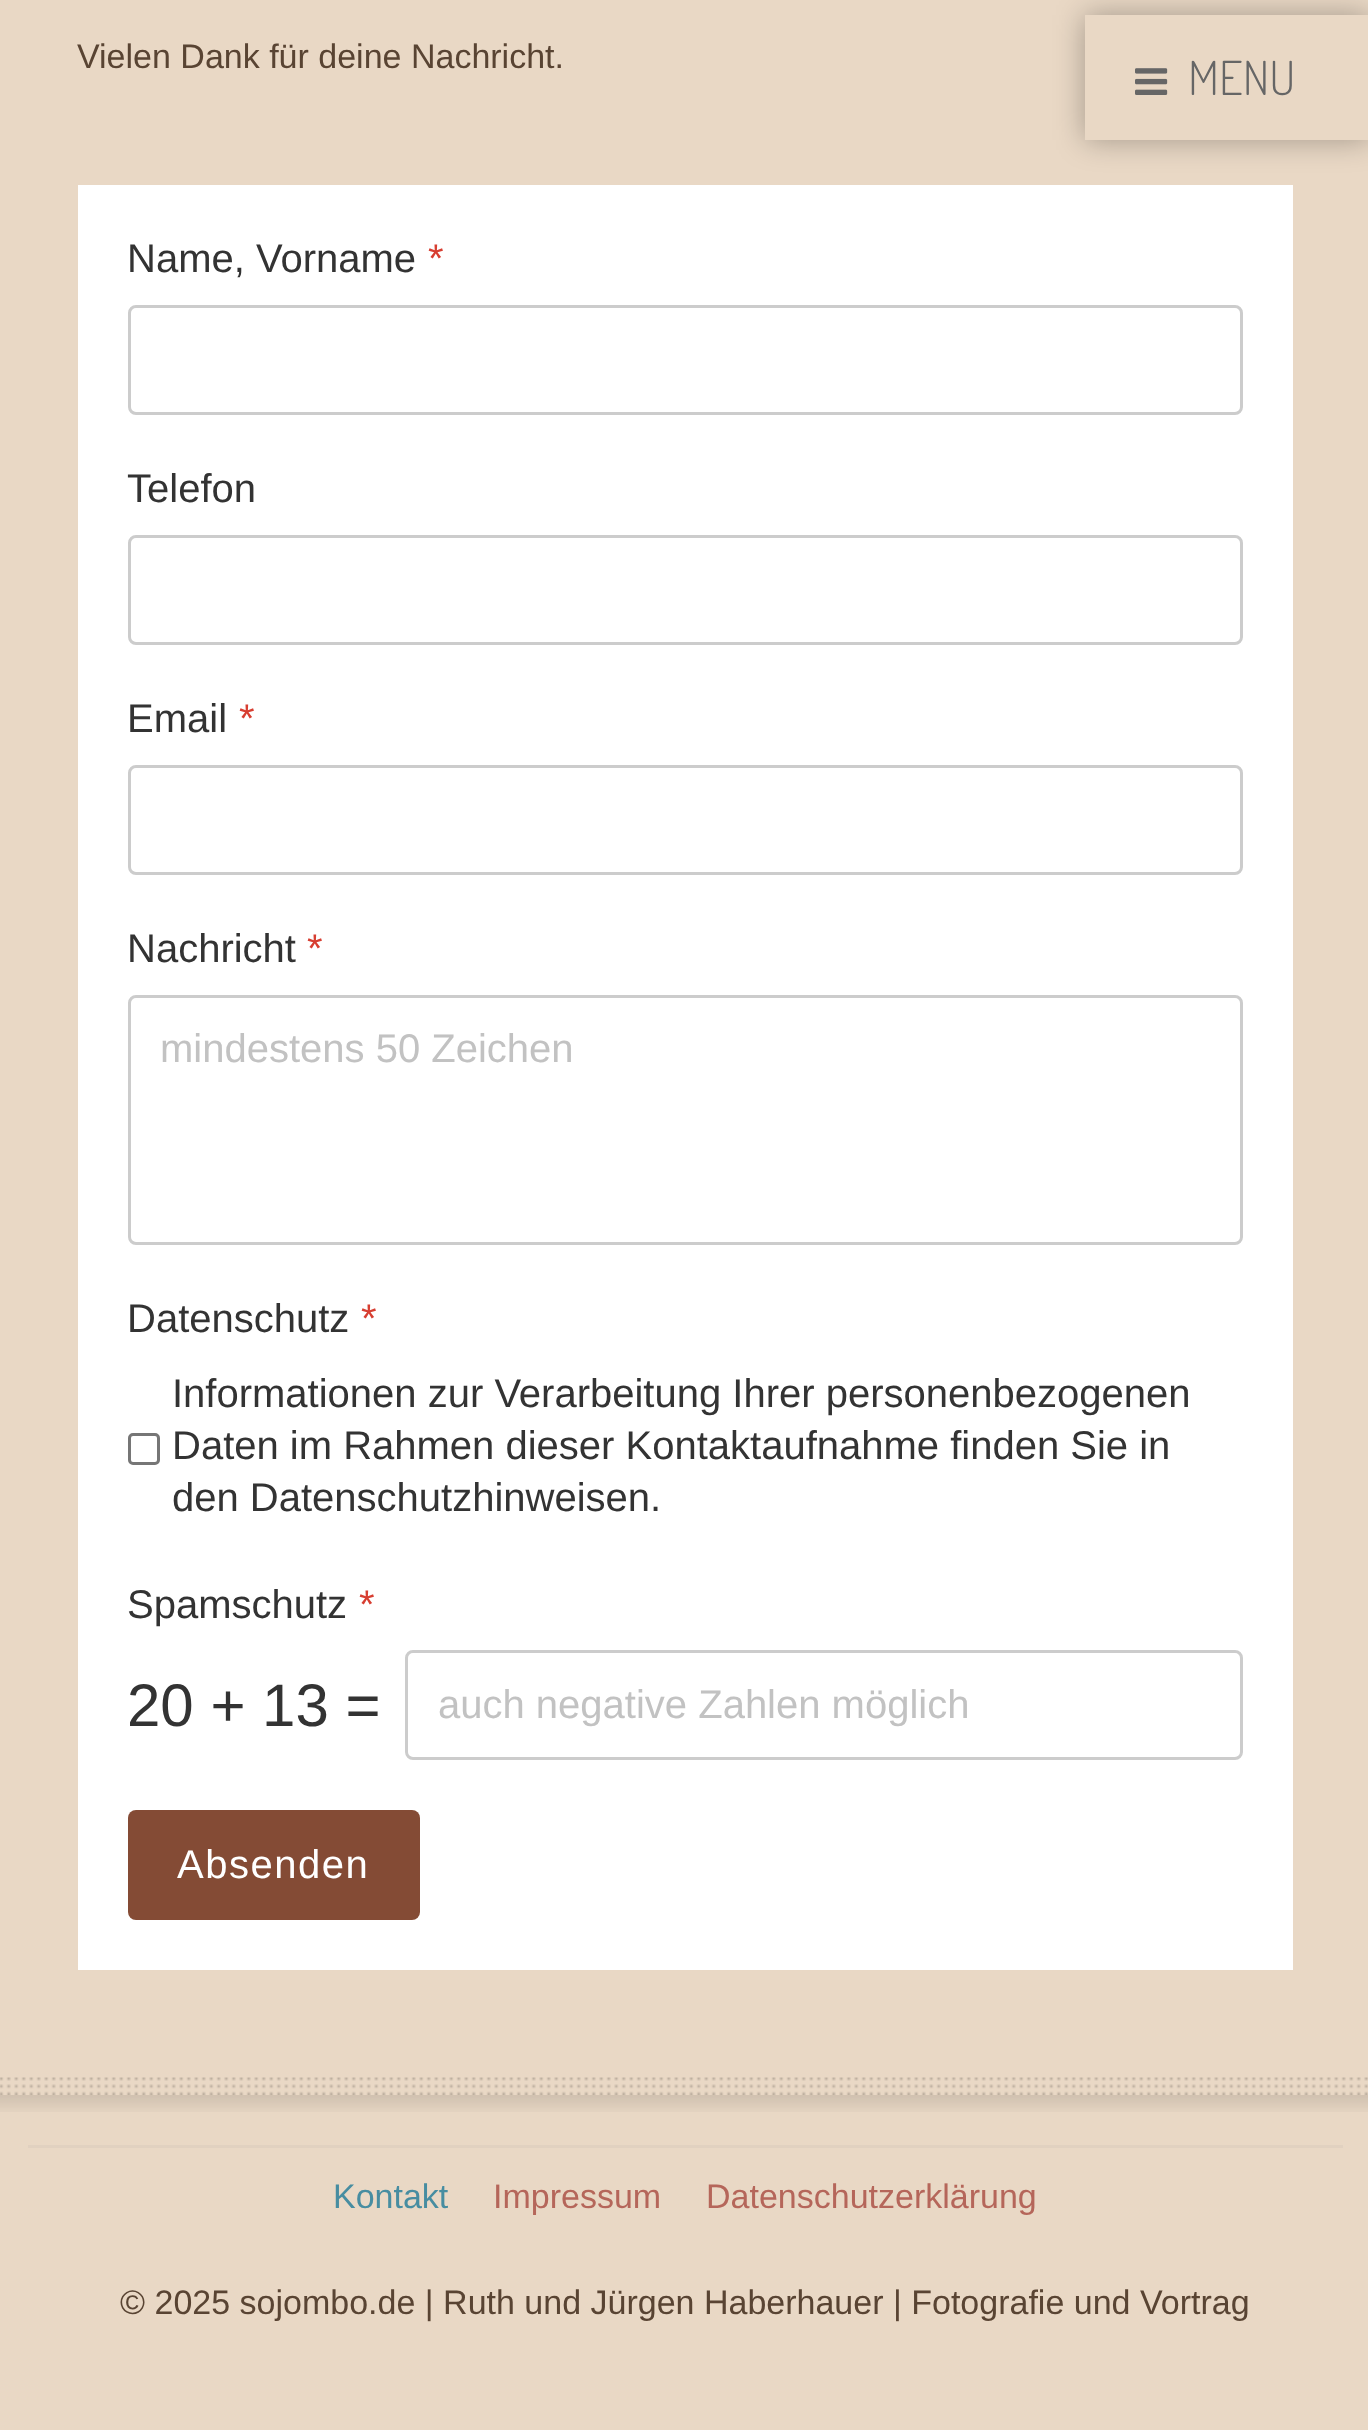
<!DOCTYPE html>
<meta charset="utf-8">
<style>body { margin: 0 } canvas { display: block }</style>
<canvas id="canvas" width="1368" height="2430"></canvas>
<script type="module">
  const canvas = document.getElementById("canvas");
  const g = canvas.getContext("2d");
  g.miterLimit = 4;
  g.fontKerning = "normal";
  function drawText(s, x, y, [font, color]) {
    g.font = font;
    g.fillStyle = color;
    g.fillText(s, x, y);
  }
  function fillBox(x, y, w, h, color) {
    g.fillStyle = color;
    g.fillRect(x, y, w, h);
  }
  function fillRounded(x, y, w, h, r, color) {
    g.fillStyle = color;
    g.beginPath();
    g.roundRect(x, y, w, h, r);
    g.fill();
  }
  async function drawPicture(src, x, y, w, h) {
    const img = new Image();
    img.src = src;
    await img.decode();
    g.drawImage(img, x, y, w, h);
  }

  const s1 = ["34px Liberation Sans", "#594433"];
  const s2 = ["40px Liberation Sans", "#333333"];
  const s3 = ["40px Liberation Sans", "#D73E31"];
  const s4 = ["40px Liberation Sans", "#C2C2C2"];
  const s5 = ["60px Liberation Sans", "#333333"];
  const s6 = ["40px Liberation Sans", "#FFFFFF"];
  const s7 = ["300 47px Dosis", "#666666"];
  const s8 = ["34px Liberation Sans", "#478DA1"];
  const s9 = ["34px Liberation Sans", "#B5665A"];

  fillBox(0, 0, 1368, 2430, "#E9D8C5");
  await drawPicture("pic1.png", 0, 2077, 1368, 18);
  drawText("Vielen Dank für deine Nachricht.", 77, 68, s1);
  fillBox(78, 185, 1215, 1785, "#FFFFFF");
  drawText("Name, Vorname", 127, 272, s2);
  drawText("*", 428, 272, s3);
  g.beginPath();
  g.roundRect(129.5, 306.5, 1112, 107, 6.5);
  g.strokeStyle = "#CCCCCC";
  g.lineWidth = 3;
  g.stroke();
  drawText("Telefon", 127, 502, s2);
  g.beginPath();
  g.roundRect(129.5, 536.5, 1112, 107, 6.5);
  g.stroke();
  drawText("Email", 127, 732, s2);
  drawText("*", 239, 732, s3);
  g.beginPath();
  g.roundRect(129.5, 766.5, 1112, 107, 6.5);
  g.stroke();
  drawText("Nachricht", 127, 962, s2);
  drawText("*", 307, 962, s3);
  g.beginPath();
  g.roundRect(129.5, 996.5, 1112, 247, 6.5);
  g.stroke();
  drawText("mindestens 50 Zeichen", 160, 1062, s4);
  drawText("Datenschutz", 127, 1332, s2);
  drawText("*", 361, 1332, s3);
  g.beginPath();
  g.roundRect(129.5, 1434.5, 29, 29, 3.5);
  g.strokeStyle = "#767676";
  g.stroke();
  drawText("Informationen zur Verarbeitung Ihrer personenbezogenen", 172, 1407, s2);
  drawText("Daten im Rahmen dieser Kontaktaufnahme finden Sie in", 172, 1459, s2);
  drawText("den Datenschutzhinweisen.", 172, 1511, s2);
  drawText("Spamschutz", 127, 1618, s2);
  drawText("*", 359, 1618, s3);
  drawText("20 + 13 =", 127, 1726, s5);
  g.beginPath();
  g.roundRect(406.5, 1651.5, 835, 107, 6.5);
  g.strokeStyle = "#CCCCCC";
  g.stroke();
  drawText("auch negative Zahlen möglich", 438, 1718, s4);
  fillRounded(128, 1810, 292, 110, 8, "#844B35");
  g.letterSpacing = "1.5px";
  drawText("Absenden", 177, 1878, s6);
  g.save();
  g.beginPath();
  g.moveTo(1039, 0);
  g.lineTo(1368, 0);
  g.lineTo(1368, 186);
  g.lineTo(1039, 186);
  g.closePath();
  g.moveTo(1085, 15);
  g.lineTo(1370, 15);
  g.lineTo(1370, 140);
  g.lineTo(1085, 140);
  g.closePath();
  g.clip("evenodd");
  g.fillStyle = "rgba(0, 0, 0, 0.3)";
  g.filter = "blur(15px)";
  g.beginPath();
  g.rect(1085, 15, 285, 125);
  g.fill();
  g.filter = "none";
  g.restore();
  await drawPicture("pic2.png", 1135, 68, 33, 27);
  g.letterSpacing = "0px";
  drawText("MENU", 1188, 95, s7);
  await drawPicture("pic3.png", 0, 2095, 1368, 17);
  fillBox(28, 2145, 1315, 3, "#E1D1C0");
  drawText("Kontakt", 333, 2208, s8);
  drawText("Impressum", 493, 2208, s9);
  drawText("Datenschutzerklärung", 706, 2208, s9);
  drawText("© 2025 sojombo.de | Ruth und Jürgen Haberhauer | Fotografie und Vortrag", 120, 2314, s1);
</script>
